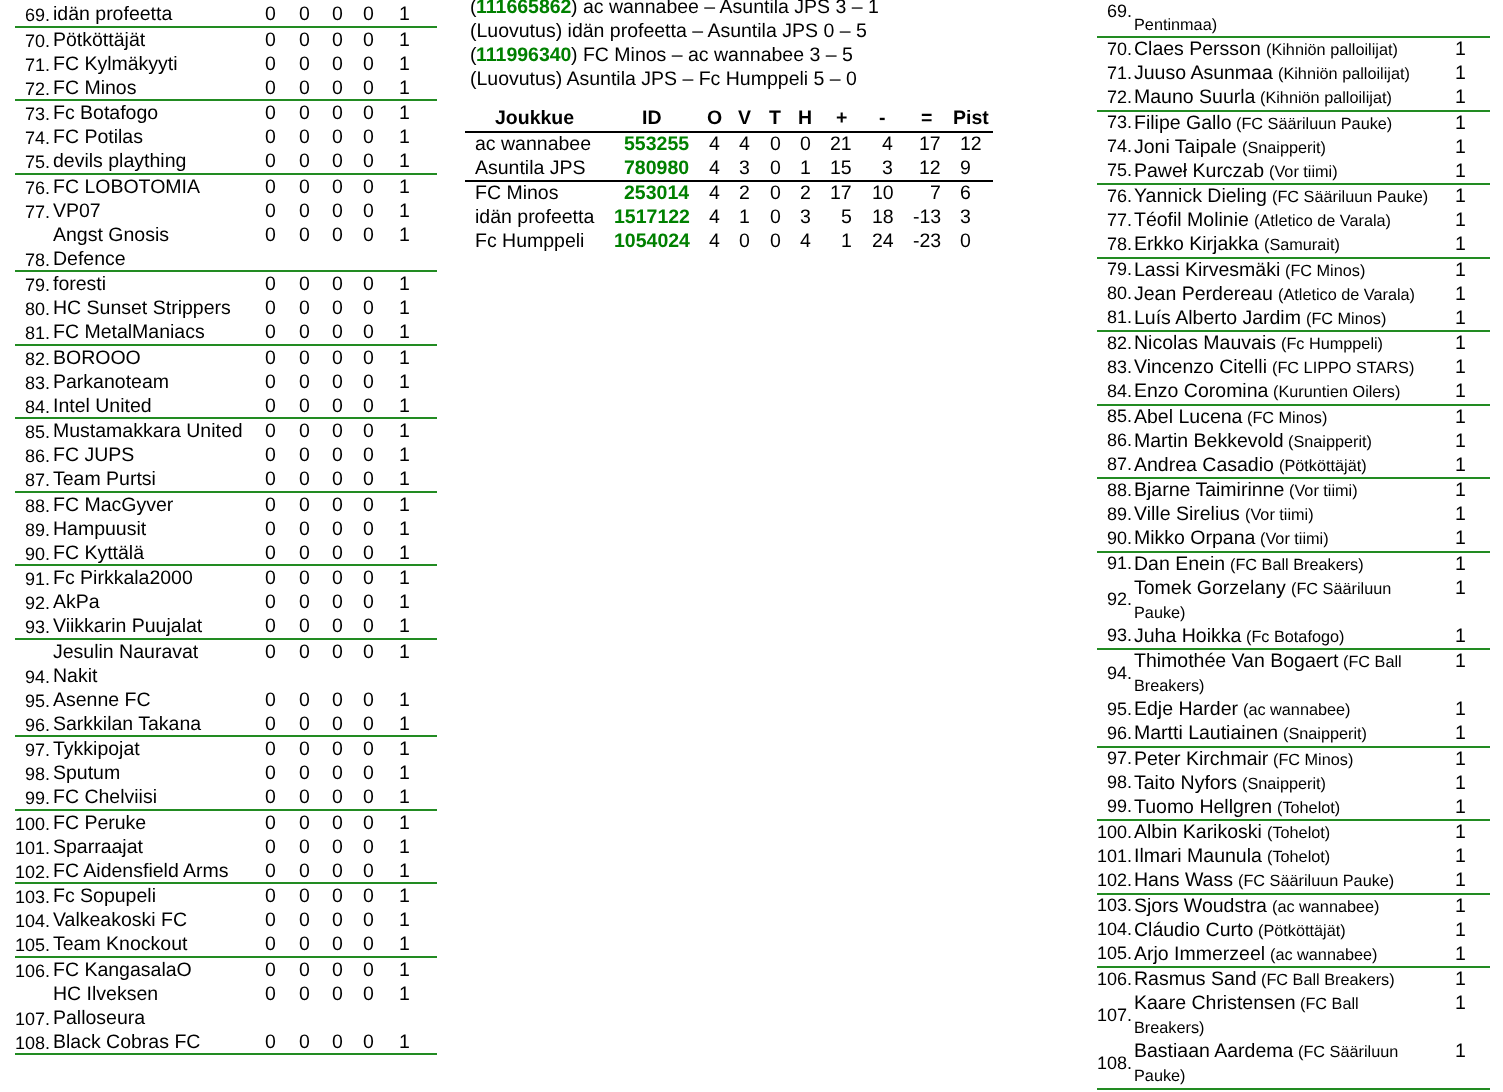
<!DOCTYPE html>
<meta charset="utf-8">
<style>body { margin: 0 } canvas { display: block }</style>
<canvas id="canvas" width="1503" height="1092"></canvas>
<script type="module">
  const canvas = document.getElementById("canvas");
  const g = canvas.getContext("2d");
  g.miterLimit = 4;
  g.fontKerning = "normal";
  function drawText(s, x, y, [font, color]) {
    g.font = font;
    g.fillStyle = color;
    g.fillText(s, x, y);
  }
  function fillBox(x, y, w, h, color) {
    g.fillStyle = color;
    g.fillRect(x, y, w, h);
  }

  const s1 = ["18px Liberation Sans", "#000000"];
  const s2 = ["19.5px Liberation Sans", "#000000"];
  const s3 = ["bold 19.5px Liberation Sans", "#008000"];
  const s4 = ["bold 19.5px Liberation Sans", "#000000"];
  const s5 = ["16.25px Liberation Sans", "#000000"];

  fillBox(0, 0, 1503, 1092, "#FFFFFF");
  fillBox(15, 26, 422, 2, "#228B22");
  drawText("69.", 25, 21, s1);
  drawText("idän profeetta", 53, 20, s2);
  drawText("0", 265, 20, s2);
  drawText("0", 299, 20, s2);
  drawText("0", 332, 20, s2);
  drawText("0", 363, 20, s2);
  drawText("1", 399, 20, s2);
  drawText("70.", 25, 47, s1);
  drawText("Pötköttäjät", 53, 46, s2);
  drawText("0", 265, 46, s2);
  drawText("0", 299, 46, s2);
  drawText("0", 332, 46, s2);
  drawText("0", 363, 46, s2);
  drawText("1", 399, 46, s2);
  drawText("71.", 25, 71, s1);
  drawText("FC Kylmäkyyti", 53, 70, s2);
  drawText("0", 265, 70, s2);
  drawText("0", 299, 70, s2);
  drawText("0", 332, 70, s2);
  drawText("0", 363, 70, s2);
  drawText("1", 399, 70, s2);
  fillBox(15, 99, 422, 2, "#228B22");
  drawText("72.", 25, 95, s1);
  drawText("FC Minos", 53, 94, s2);
  drawText("0", 265, 94, s2);
  drawText("0", 299, 94, s2);
  drawText("0", 332, 94, s2);
  drawText("0", 363, 94, s2);
  drawText("1", 399, 94, s2);
  drawText("73.", 25, 120, s1);
  drawText("Fc Botafogo", 53, 119, s2);
  drawText("0", 265, 119, s2);
  drawText("0", 299, 119, s2);
  drawText("0", 332, 119, s2);
  drawText("0", 363, 119, s2);
  drawText("1", 399, 119, s2);
  drawText("74.", 25, 144, s1);
  drawText("FC Potilas", 53, 143, s2);
  drawText("0", 265, 143, s2);
  drawText("0", 299, 143, s2);
  drawText("0", 332, 143, s2);
  drawText("0", 363, 143, s2);
  drawText("1", 399, 143, s2);
  fillBox(15, 173, 422, 2, "#228B22");
  drawText("75.", 25, 168, s1);
  drawText("devils plaything", 53, 167, s2);
  drawText("0", 265, 167, s2);
  drawText("0", 299, 167, s2);
  drawText("0", 332, 167, s2);
  drawText("0", 363, 167, s2);
  drawText("1", 399, 167, s2);
  drawText("76.", 25, 194, s1);
  drawText("FC LOBOTOMIA", 53, 193, s2);
  drawText("0", 265, 193, s2);
  drawText("0", 299, 193, s2);
  drawText("0", 332, 193, s2);
  drawText("0", 363, 193, s2);
  drawText("1", 399, 193, s2);
  drawText("77.", 25, 218, s1);
  drawText("VP07", 53, 217, s2);
  drawText("0", 265, 217, s2);
  drawText("0", 299, 217, s2);
  drawText("0", 332, 217, s2);
  drawText("0", 363, 217, s2);
  drawText("1", 399, 217, s2);
  fillBox(15, 270, 422, 2, "#228B22");
  drawText("Angst Gnosis", 53, 241, s2);
  drawText("Defence", 53, 265, s2);
  drawText("0", 265, 241, s2);
  drawText("0", 299, 241, s2);
  drawText("0", 332, 241, s2);
  drawText("0", 363, 241, s2);
  drawText("1", 399, 241, s2);
  drawText("78.", 25, 266, s1);
  drawText("79.", 25, 291, s1);
  drawText("foresti", 53, 290, s2);
  drawText("0", 265, 290, s2);
  drawText("0", 299, 290, s2);
  drawText("0", 332, 290, s2);
  drawText("0", 363, 290, s2);
  drawText("1", 399, 290, s2);
  drawText("80.", 25, 315, s1);
  drawText("HC Sunset Strippers", 53, 314, s2);
  drawText("0", 265, 314, s2);
  drawText("0", 299, 314, s2);
  drawText("0", 332, 314, s2);
  drawText("0", 363, 314, s2);
  drawText("1", 399, 314, s2);
  fillBox(15, 344, 422, 2, "#228B22");
  drawText("81.", 25, 339, s1);
  drawText("FC MetalManiacs", 53, 338, s2);
  drawText("0", 265, 338, s2);
  drawText("0", 299, 338, s2);
  drawText("0", 332, 338, s2);
  drawText("0", 363, 338, s2);
  drawText("1", 399, 338, s2);
  drawText("82.", 25, 365, s1);
  drawText("BOROOO", 53, 364, s2);
  drawText("0", 265, 364, s2);
  drawText("0", 299, 364, s2);
  drawText("0", 332, 364, s2);
  drawText("0", 363, 364, s2);
  drawText("1", 399, 364, s2);
  drawText("83.", 25, 389, s1);
  drawText("Parkanoteam", 53, 388, s2);
  drawText("0", 265, 388, s2);
  drawText("0", 299, 388, s2);
  drawText("0", 332, 388, s2);
  drawText("0", 363, 388, s2);
  drawText("1", 399, 388, s2);
  fillBox(15, 417, 422, 2, "#228B22");
  drawText("84.", 25, 413, s1);
  drawText("Intel United", 53, 412, s2);
  drawText("0", 265, 412, s2);
  drawText("0", 299, 412, s2);
  drawText("0", 332, 412, s2);
  drawText("0", 363, 412, s2);
  drawText("1", 399, 412, s2);
  drawText("85.", 25, 438, s1);
  drawText("Mustamakkara United", 53, 437, s2);
  drawText("0", 265, 437, s2);
  drawText("0", 299, 437, s2);
  drawText("0", 332, 437, s2);
  drawText("0", 363, 437, s2);
  drawText("1", 399, 437, s2);
  drawText("86.", 25, 462, s1);
  drawText("FC JUPS", 53, 461, s2);
  drawText("0", 265, 461, s2);
  drawText("0", 299, 461, s2);
  drawText("0", 332, 461, s2);
  drawText("0", 363, 461, s2);
  drawText("1", 399, 461, s2);
  fillBox(15, 491, 422, 2, "#228B22");
  drawText("87.", 25, 486, s1);
  drawText("Team Purtsi", 53, 485, s2);
  drawText("0", 265, 485, s2);
  drawText("0", 299, 485, s2);
  drawText("0", 332, 485, s2);
  drawText("0", 363, 485, s2);
  drawText("1", 399, 485, s2);
  drawText("88.", 25, 512, s1);
  drawText("FC MacGyver", 53, 511, s2);
  drawText("0", 265, 511, s2);
  drawText("0", 299, 511, s2);
  drawText("0", 332, 511, s2);
  drawText("0", 363, 511, s2);
  drawText("1", 399, 511, s2);
  drawText("89.", 25, 536, s1);
  drawText("Hampuusit", 53, 535, s2);
  drawText("0", 265, 535, s2);
  drawText("0", 299, 535, s2);
  drawText("0", 332, 535, s2);
  drawText("0", 363, 535, s2);
  drawText("1", 399, 535, s2);
  fillBox(15, 564, 422, 2, "#228B22");
  drawText("90.", 25, 560, s1);
  drawText("FC Kyttälä", 53, 559, s2);
  drawText("0", 265, 559, s2);
  drawText("0", 299, 559, s2);
  drawText("0", 332, 559, s2);
  drawText("0", 363, 559, s2);
  drawText("1", 399, 559, s2);
  drawText("91.", 25, 585, s1);
  drawText("Fc Pirkkala2000", 53, 584, s2);
  drawText("0", 265, 584, s2);
  drawText("0", 299, 584, s2);
  drawText("0", 332, 584, s2);
  drawText("0", 363, 584, s2);
  drawText("1", 399, 584, s2);
  drawText("92.", 25, 609, s1);
  drawText("AkPa", 53, 608, s2);
  drawText("0", 265, 608, s2);
  drawText("0", 299, 608, s2);
  drawText("0", 332, 608, s2);
  drawText("0", 363, 608, s2);
  drawText("1", 399, 608, s2);
  fillBox(15, 638, 422, 2, "#228B22");
  drawText("93.", 25, 633, s1);
  drawText("Viikkarin Puujalat", 53, 632, s2);
  drawText("0", 265, 632, s2);
  drawText("0", 299, 632, s2);
  drawText("0", 332, 632, s2);
  drawText("0", 363, 632, s2);
  drawText("1", 399, 632, s2);
  drawText("Jesulin Nauravat", 53, 658, s2);
  drawText("Nakit", 53, 682, s2);
  drawText("0", 265, 658, s2);
  drawText("0", 299, 658, s2);
  drawText("0", 332, 658, s2);
  drawText("0", 363, 658, s2);
  drawText("1", 399, 658, s2);
  drawText("94.", 25, 683, s1);
  drawText("95.", 25, 707, s1);
  drawText("Asenne FC", 53, 706, s2);
  drawText("0", 265, 706, s2);
  drawText("0", 299, 706, s2);
  drawText("0", 332, 706, s2);
  drawText("0", 363, 706, s2);
  drawText("1", 399, 706, s2);
  fillBox(15, 735, 422, 2, "#228B22");
  drawText("96.", 25, 731, s1);
  drawText("Sarkkilan Takana", 53, 730, s2);
  drawText("0", 265, 730, s2);
  drawText("0", 299, 730, s2);
  drawText("0", 332, 730, s2);
  drawText("0", 363, 730, s2);
  drawText("1", 399, 730, s2);
  drawText("97.", 25, 756, s1);
  drawText("Tykkipojat", 53, 755, s2);
  drawText("0", 265, 755, s2);
  drawText("0", 299, 755, s2);
  drawText("0", 332, 755, s2);
  drawText("0", 363, 755, s2);
  drawText("1", 399, 755, s2);
  drawText("98.", 25, 780, s1);
  drawText("Sputum", 53, 779, s2);
  drawText("0", 265, 779, s2);
  drawText("0", 299, 779, s2);
  drawText("0", 332, 779, s2);
  drawText("0", 363, 779, s2);
  drawText("1", 399, 779, s2);
  fillBox(15, 809, 422, 2, "#228B22");
  drawText("99.", 25, 804, s1);
  drawText("FC Chelviisi", 53, 803, s2);
  drawText("0", 265, 803, s2);
  drawText("0", 299, 803, s2);
  drawText("0", 332, 803, s2);
  drawText("0", 363, 803, s2);
  drawText("1", 399, 803, s2);
  drawText("100.", 15, 830, s1);
  drawText("FC Peruke", 53, 829, s2);
  drawText("0", 265, 829, s2);
  drawText("0", 299, 829, s2);
  drawText("0", 332, 829, s2);
  drawText("0", 363, 829, s2);
  drawText("1", 399, 829, s2);
  drawText("101.", 15, 854, s1);
  drawText("Sparraajat", 53, 853, s2);
  drawText("0", 265, 853, s2);
  drawText("0", 299, 853, s2);
  drawText("0", 332, 853, s2);
  drawText("0", 363, 853, s2);
  drawText("1", 399, 853, s2);
  fillBox(15, 882, 422, 2, "#228B22");
  drawText("102.", 15, 878, s1);
  drawText("FC Aidensfield Arms", 53, 877, s2);
  drawText("0", 265, 877, s2);
  drawText("0", 299, 877, s2);
  drawText("0", 332, 877, s2);
  drawText("0", 363, 877, s2);
  drawText("1", 399, 877, s2);
  drawText("103.", 15, 903, s1);
  drawText("Fc Sopupeli", 53, 902, s2);
  drawText("0", 265, 902, s2);
  drawText("0", 299, 902, s2);
  drawText("0", 332, 902, s2);
  drawText("0", 363, 902, s2);
  drawText("1", 399, 902, s2);
  drawText("104.", 15, 927, s1);
  drawText("Valkeakoski FC", 53, 926, s2);
  drawText("0", 265, 926, s2);
  drawText("0", 299, 926, s2);
  drawText("0", 332, 926, s2);
  drawText("0", 363, 926, s2);
  drawText("1", 399, 926, s2);
  fillBox(15, 956, 422, 2, "#228B22");
  drawText("105.", 15, 951, s1);
  drawText("Team Knockout", 53, 950, s2);
  drawText("0", 265, 950, s2);
  drawText("0", 299, 950, s2);
  drawText("0", 332, 950, s2);
  drawText("0", 363, 950, s2);
  drawText("1", 399, 950, s2);
  drawText("106.", 15, 977, s1);
  drawText("FC KangasalaO", 53, 976, s2);
  drawText("0", 265, 976, s2);
  drawText("0", 299, 976, s2);
  drawText("0", 332, 976, s2);
  drawText("0", 363, 976, s2);
  drawText("1", 399, 976, s2);
  drawText("HC Ilveksen", 53, 1000, s2);
  drawText("Palloseura", 53, 1024, s2);
  drawText("0", 265, 1000, s2);
  drawText("0", 299, 1000, s2);
  drawText("0", 332, 1000, s2);
  drawText("0", 363, 1000, s2);
  drawText("1", 399, 1000, s2);
  drawText("107.", 15, 1025, s1);
  fillBox(15, 1053, 422, 2, "#228B22");
  drawText("108.", 15, 1049, s1);
  drawText("Black Cobras FC", 53, 1048, s2);
  drawText("0", 265, 1048, s2);
  drawText("0", 299, 1048, s2);
  drawText("0", 332, 1048, s2);
  drawText("0", 363, 1048, s2);
  drawText("1", 399, 1048, s2);
  drawText("(", 470, 13, s2);
  drawText("111665862", 476, 13, s3);
  drawText(") ac wannabee – Asuntila JPS 3 – 1", 571, 13, s2);
  drawText("(Luovutus) idän profeetta – Asuntila JPS 0 – 5", 470, 37, s2);
  drawText("(", 470, 61, s2);
  drawText("111996340", 476, 61, s3);
  drawText(") FC Minos – ac wannabee 3 – 5", 571, 61, s2);
  drawText("(Luovutus) Asuntila JPS – Fc Humppeli 5 – 0", 470, 85, s2);
  fillBox(465, 131, 528, 2, "#000000");
  drawText("Joukkue", 495, 124, s4);
  drawText("ID", 642, 124, s4);
  drawText("O", 707, 124, s4);
  drawText("V", 738, 124, s4);
  drawText("T", 769, 124, s4);
  drawText("H", 798, 124, s4);
  drawText("+", 836, 124, s4);
  drawText("-", 879, 124, s4);
  drawText("=", 921, 124, s4);
  drawText("Pist", 953, 124, s4);
  drawText("ac wannabee", 475, 150, s2);
  drawText("553255", 624, 150, s3);
  drawText("4", 709, 150, s2);
  drawText("4", 739, 150, s2);
  drawText("0", 770, 150, s2);
  drawText("0", 800, 150, s2);
  drawText("21", 830, 150, s2);
  drawText("4", 882, 150, s2);
  drawText("17", 919, 150, s2);
  drawText("12", 960, 150, s2);
  fillBox(465, 180, 528, 2, "#000000");
  drawText("Asuntila JPS", 475, 174, s2);
  drawText("780980", 624, 174, s3);
  drawText("4", 709, 174, s2);
  drawText("3", 739, 174, s2);
  drawText("0", 770, 174, s2);
  drawText("1", 800, 174, s2);
  drawText("15", 830, 174, s2);
  drawText("3", 882, 174, s2);
  drawText("12", 919, 174, s2);
  drawText("9", 960, 174, s2);
  drawText("FC Minos", 475, 199, s2);
  drawText("253014", 624, 199, s3);
  drawText("4", 709, 199, s2);
  drawText("2", 739, 199, s2);
  drawText("0", 770, 199, s2);
  drawText("2", 800, 199, s2);
  drawText("17", 830, 199, s2);
  drawText("10", 872, 199, s2);
  drawText("7", 930, 199, s2);
  drawText("6", 960, 199, s2);
  drawText("idän profeetta", 475, 223, s2);
  drawText("1517122", 614, 223, s3);
  drawText("4", 709, 223, s2);
  drawText("1", 739, 223, s2);
  drawText("0", 770, 223, s2);
  drawText("3", 800, 223, s2);
  drawText("5", 841, 223, s2);
  drawText("18", 872, 223, s2);
  drawText("-13", 913, 223, s2);
  drawText("3", 960, 223, s2);
  drawText("Fc Humppeli", 475, 247, s2);
  drawText("1054024", 614, 247, s3);
  drawText("4", 709, 247, s2);
  drawText("0", 739, 247, s2);
  drawText("0", 770, 247, s2);
  drawText("4", 800, 247, s2);
  drawText("1", 841, 247, s2);
  drawText("24", 872, 247, s2);
  drawText("-23", 913, 247, s2);
  drawText("0", 960, 247, s2);
  fillBox(1097, 36, 393, 2, "#228B22");
  drawText("69.", 1107, 17, s1);
  drawText("Pentinmaa)", 1134, 30, s5);
  drawText("70.", 1107, 55, s1);
  drawText("Claes Persson", 1134, 55, s2);
  drawText("(Kihniön palloilijat)", 1266, 55, s5);
  drawText("1", 1455, 55, s2);
  drawText("71.", 1107, 79, s1);
  drawText("Juuso Asunmaa", 1134, 79, s2);
  drawText("(Kihniön palloilijat)", 1278, 79, s5);
  drawText("1", 1455, 79, s2);
  fillBox(1097, 110, 393, 2, "#228B22");
  drawText("72.", 1107, 103, s1);
  drawText("Mauno Suurla", 1134, 103, s2);
  drawText("(Kihniön palloilijat)", 1260, 103, s5);
  drawText("1", 1455, 103, s2);
  drawText("73.", 1107, 128, s1);
  drawText("Filipe Gallo", 1134, 129, s2);
  drawText("(FC Sääriluun Pauke)", 1236, 129, s5);
  drawText("1", 1455, 129, s2);
  drawText("74.", 1107, 152, s1);
  drawText("Joni Taipale", 1134, 153, s2);
  drawText("(Snaipperit)", 1242, 153, s5);
  drawText("1", 1455, 153, s2);
  fillBox(1097, 183, 393, 2, "#228B22");
  drawText("75.", 1107, 176, s1);
  drawText("Paweł Kurczab", 1134, 177, s2);
  drawText("(Vor tiimi)", 1269, 177, s5);
  drawText("1", 1455, 177, s2);
  drawText("76.", 1107, 202, s1);
  drawText("Yannick Dieling", 1134, 202, s2);
  drawText("(FC Sääriluun Pauke)", 1272, 202, s5);
  drawText("1", 1455, 202, s2);
  drawText("77.", 1107, 226, s1);
  drawText("Téofil Molinie", 1134, 226, s2);
  drawText("(Atletico de Varala)", 1254, 226, s5);
  drawText("1", 1455, 226, s2);
  fillBox(1097, 257, 393, 2, "#228B22");
  drawText("78.", 1107, 250, s1);
  drawText("Erkko Kirjakka", 1134, 250, s2);
  drawText("(Samurait)", 1264, 250, s5);
  drawText("1", 1455, 250, s2);
  drawText("79.", 1107, 275, s1);
  drawText("Lassi Kirvesmäki", 1134, 276, s2);
  drawText("(FC Minos)", 1285, 276, s5);
  drawText("1", 1455, 276, s2);
  drawText("80.", 1107, 299, s1);
  drawText("Jean Perdereau", 1134, 300, s2);
  drawText("(Atletico de Varala)", 1278, 300, s5);
  drawText("1", 1455, 300, s2);
  fillBox(1097, 330, 393, 2, "#228B22");
  drawText("81.", 1107, 323, s1);
  drawText("Luís Alberto Jardim", 1134, 324, s2);
  drawText("(FC Minos)", 1306, 324, s5);
  drawText("1", 1455, 324, s2);
  drawText("82.", 1107, 349, s1);
  drawText("Nicolas Mauvais", 1134, 349, s2);
  drawText("(Fc Humppeli)", 1281, 349, s5);
  drawText("1", 1455, 349, s2);
  drawText("83.", 1107, 373, s1);
  drawText("Vincenzo Citelli", 1134, 373, s2);
  drawText("(FC LIPPO STARS)", 1272, 373, s5);
  drawText("1", 1455, 373, s2);
  fillBox(1097, 404, 393, 2, "#228B22");
  drawText("84.", 1107, 397, s1);
  drawText("Enzo Coromina", 1134, 397, s2);
  drawText("(Kuruntien Oilers)", 1273, 397, s5);
  drawText("1", 1455, 397, s2);
  drawText("85.", 1107, 422, s1);
  drawText("Abel Lucena", 1134, 423, s2);
  drawText("(FC Minos)", 1247, 423, s5);
  drawText("1", 1455, 423, s2);
  drawText("86.", 1107, 446, s1);
  drawText("Martin Bekkevold", 1134, 447, s2);
  drawText("(Snaipperit)", 1288, 447, s5);
  drawText("1", 1455, 447, s2);
  fillBox(1097, 477, 393, 2, "#228B22");
  drawText("87.", 1107, 470, s1);
  drawText("Andrea Casadio", 1134, 471, s2);
  drawText("(Pötköttäjät)", 1279, 471, s5);
  drawText("1", 1455, 471, s2);
  drawText("88.", 1107, 496, s1);
  drawText("Bjarne Taimirinne", 1134, 496, s2);
  drawText("(Vor tiimi)", 1289, 496, s5);
  drawText("1", 1455, 496, s2);
  drawText("89.", 1107, 520, s1);
  drawText("Ville Sirelius", 1134, 520, s2);
  drawText("(Vor tiimi)", 1245, 520, s5);
  drawText("1", 1455, 520, s2);
  fillBox(1097, 551, 393, 2, "#228B22");
  drawText("90.", 1107, 544, s1);
  drawText("Mikko Orpana", 1134, 544, s2);
  drawText("(Vor tiimi)", 1260, 544, s5);
  drawText("1", 1455, 544, s2);
  drawText("91.", 1107, 569, s1);
  drawText("Dan Enein", 1134, 570, s2);
  drawText("(FC Ball Breakers)", 1230, 570, s5);
  drawText("1", 1455, 570, s2);
  drawText("Tomek Gorzelany", 1134, 594, s2);
  drawText("(FC Sääriluun", 1291, 594, s5);
  drawText("Pauke)", 1134, 618, s5);
  drawText("1", 1455, 594, s2);
  drawText("92.", 1107, 605, s1);
  fillBox(1097, 648, 393, 2, "#228B22");
  drawText("93.", 1107, 641, s1);
  drawText("Juha Hoikka", 1134, 642, s2);
  drawText("(Fc Botafogo)", 1246, 642, s5);
  drawText("1", 1455, 642, s2);
  drawText("Thimothée Van Bogaert", 1134, 667, s2);
  drawText("(FC Ball", 1343, 667, s5);
  drawText("Breakers)", 1134, 691, s5);
  drawText("1", 1455, 667, s2);
  drawText("94.", 1107, 679, s1);
  drawText("95.", 1107, 715, s1);
  drawText("Edje Harder", 1134, 715, s2);
  drawText("(ac wannabee)", 1243, 715, s5);
  drawText("1", 1455, 715, s2);
  fillBox(1097, 746, 393, 2, "#228B22");
  drawText("96.", 1107, 739, s1);
  drawText("Martti Lautiainen", 1134, 739, s2);
  drawText("(Snaipperit)", 1283, 739, s5);
  drawText("1", 1455, 739, s2);
  drawText("97.", 1107, 764, s1);
  drawText("Peter Kirchmair", 1134, 765, s2);
  drawText("(FC Minos)", 1273, 765, s5);
  drawText("1", 1455, 765, s2);
  drawText("98.", 1107, 788, s1);
  drawText("Taito Nyfors", 1134, 789, s2);
  drawText("(Snaipperit)", 1242, 789, s5);
  drawText("1", 1455, 789, s2);
  fillBox(1097, 819, 393, 2, "#228B22");
  drawText("99.", 1107, 812, s1);
  drawText("Tuomo Hellgren", 1134, 813, s2);
  drawText("(Tohelot)", 1277, 813, s5);
  drawText("1", 1455, 813, s2);
  drawText("100.", 1097, 838, s1);
  drawText("Albin Karikoski", 1134, 838, s2);
  drawText("(Tohelot)", 1267, 838, s5);
  drawText("1", 1455, 838, s2);
  drawText("101.", 1097, 862, s1);
  drawText("Ilmari Maunula", 1134, 862, s2);
  drawText("(Tohelot)", 1267, 862, s5);
  drawText("1", 1455, 862, s2);
  fillBox(1097, 893, 393, 2, "#228B22");
  drawText("102.", 1097, 886, s1);
  drawText("Hans Wass", 1134, 886, s2);
  drawText("(FC Sääriluun Pauke)", 1238, 886, s5);
  drawText("1", 1455, 886, s2);
  drawText("103.", 1097, 911, s1);
  drawText("Sjors Woudstra", 1134, 912, s2);
  drawText("(ac wannabee)", 1272, 912, s5);
  drawText("1", 1455, 912, s2);
  drawText("104.", 1097, 935, s1);
  drawText("Cláudio Curto", 1134, 936, s2);
  drawText("(Pötköttäjät)", 1258, 936, s5);
  drawText("1", 1455, 936, s2);
  fillBox(1097, 966, 393, 2, "#228B22");
  drawText("105.", 1097, 959, s1);
  drawText("Arjo Immerzeel", 1134, 960, s2);
  drawText("(ac wannabee)", 1270, 960, s5);
  drawText("1", 1455, 960, s2);
  drawText("106.", 1097, 985, s1);
  drawText("Rasmus Sand", 1134, 985, s2);
  drawText("(FC Ball Breakers)", 1261, 985, s5);
  drawText("1", 1455, 985, s2);
  drawText("Kaare Christensen", 1134, 1009, s2);
  drawText("(FC Ball", 1300, 1009, s5);
  drawText("Breakers)", 1134, 1033, s5);
  drawText("1", 1455, 1009, s2);
  drawText("107.", 1097, 1021, s1);
  fillBox(1097, 1088, 393, 2, "#228B22");
  drawText("Bastiaan Aardema", 1134, 1057, s2);
  drawText("(FC Sääriluun", 1298, 1057, s5);
  drawText("Pauke)", 1134, 1081, s5);
  drawText("1", 1455, 1057, s2);
  drawText("108.", 1097, 1069, s1);
</script>
